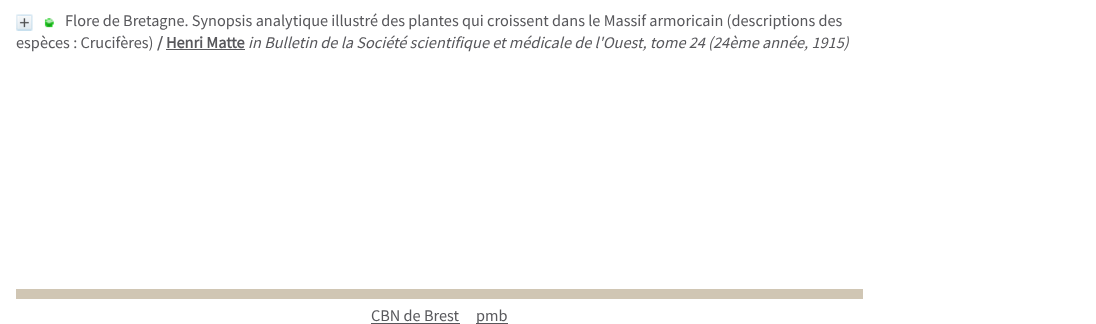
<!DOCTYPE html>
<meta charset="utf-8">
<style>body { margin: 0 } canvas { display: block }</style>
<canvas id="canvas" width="1096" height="324"></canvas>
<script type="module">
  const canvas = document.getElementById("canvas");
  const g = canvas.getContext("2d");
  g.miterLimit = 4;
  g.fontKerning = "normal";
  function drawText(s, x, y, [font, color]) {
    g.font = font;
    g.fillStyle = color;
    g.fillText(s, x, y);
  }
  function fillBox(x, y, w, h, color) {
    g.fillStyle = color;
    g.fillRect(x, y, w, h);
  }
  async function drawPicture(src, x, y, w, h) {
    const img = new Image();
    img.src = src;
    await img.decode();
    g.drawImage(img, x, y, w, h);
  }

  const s1 = ["16.25px Source Sans Pro", "#58585C"];
  const s2 = ["bold 16.25px Source Sans Pro", "#58585C"];
  const s3 = ["italic 16.25px Source Sans Pro", "#58585C"];

  fillBox(0, 0, 1096, 324, "#FFFFFF");
  await drawPicture("pic1.png", 16, 14, 17, 17);
  await drawPicture("pic2.png", 44, 18, 10, 10);
  drawText("Flore de Bretagne. Synopsis analytique illustré des plantes qui croissent dans le Massif armoricain (descriptions des", 65, 26, s1);
  drawText("espèces : Crucifères)", 16, 48, s1);
  drawText("/ Henri Matte", 157, 48, s2);
  fillBox(166, 49, 79, 1, "#58585C");
  drawText("in Bulletin de la Société scientifique et médicale de l'Ouest, tome 24 (24ème année, 1915)", 248, 48, s3);
  fillBox(16, 289, 847, 10, "#D0C6B4");
  drawText("CBN de Brest", 371, 321, s1);
  fillBox(371, 323, 89, 1, "#58585C");
  fillBox(476, 323, 32, 1, "#58585C");
  drawText("pmb", 476, 321, s1);
</script>
